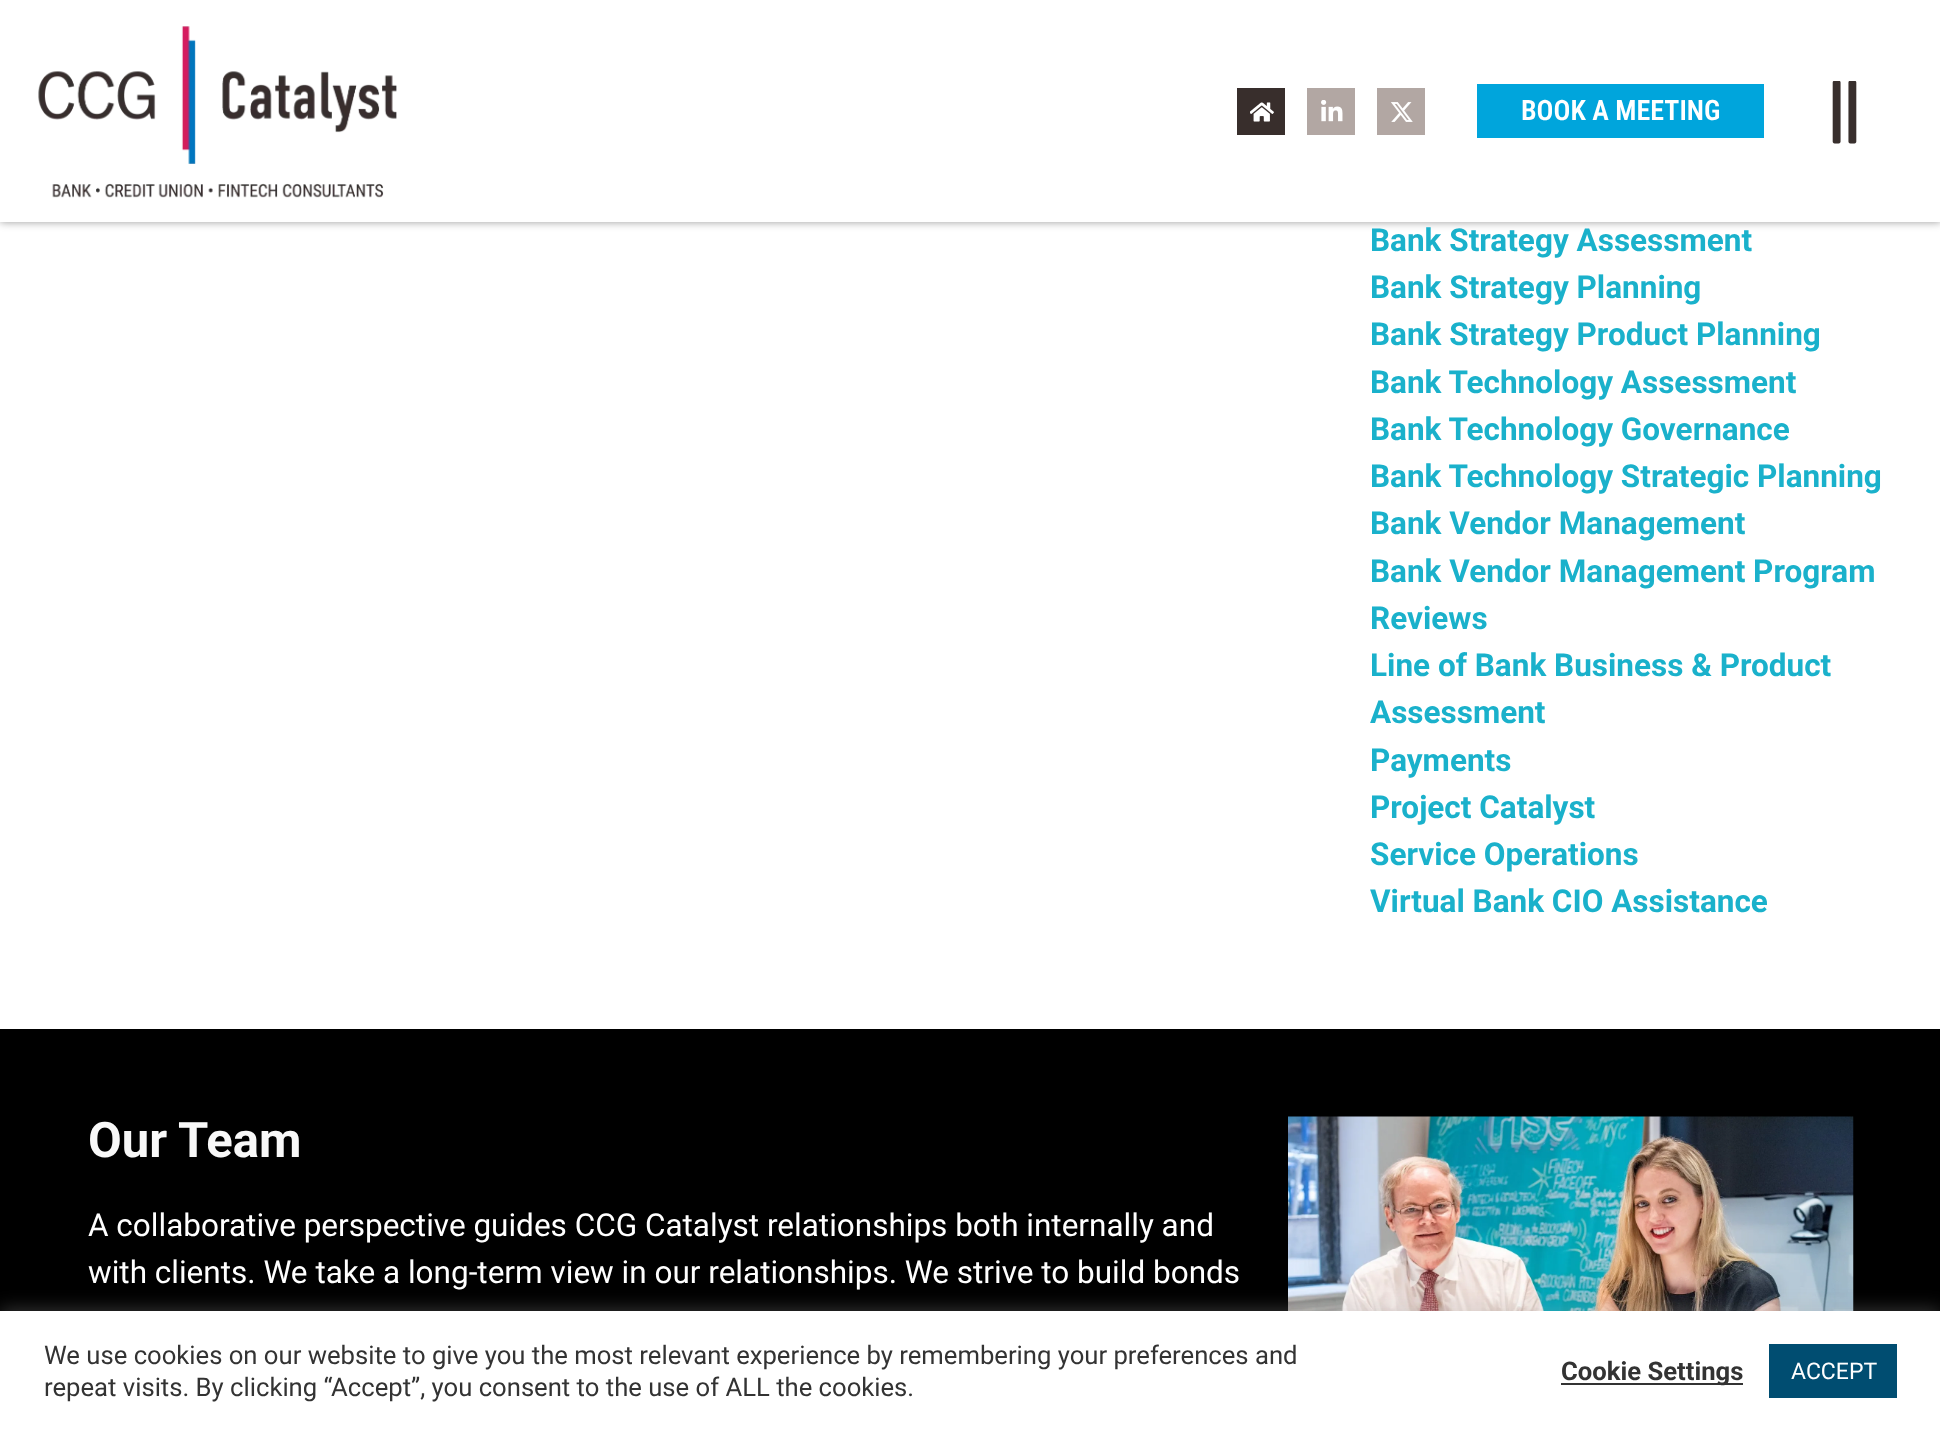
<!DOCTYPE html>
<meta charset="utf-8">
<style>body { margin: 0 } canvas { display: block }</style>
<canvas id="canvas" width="1940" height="1431"></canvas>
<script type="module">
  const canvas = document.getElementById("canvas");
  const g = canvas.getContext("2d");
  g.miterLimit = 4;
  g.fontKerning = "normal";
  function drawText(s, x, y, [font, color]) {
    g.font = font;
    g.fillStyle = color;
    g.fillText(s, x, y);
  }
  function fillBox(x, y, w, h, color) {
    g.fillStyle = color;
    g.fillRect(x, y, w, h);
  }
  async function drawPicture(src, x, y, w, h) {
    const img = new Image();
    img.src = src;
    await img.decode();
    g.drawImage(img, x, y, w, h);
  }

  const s1 = ["600 28px Roboto Condensed", "#FFFFFF"];
  const s2 = ["bold 31.5px Roboto", "#1AB1CB"];
  const s3 = ["bold 49px Roboto", "#F8F8F8"];
  const s4 = ["31.5px Roboto", "#FFFFFF"];
  const s5 = ["25.65px Roboto", "#333333"];
  const s6 = ["bold 25.65px Roboto", "#333333"];
  const s7 = ["23px Roboto", "#FFFFFF"];

  fillBox(0, 0, 1940, 1431, "#FFFFFF");
  g.fillStyle = "rgba(0, 0, 0, 0.4)";
  g.filter = "blur(4.5px)";
  g.beginPath();
  g.rect(0, 0, 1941, 222);
  g.fill();
  g.filter = "none";
  fillBox(0, 0, 1940, 222, "#FFFFFF");
  await drawPicture("pic1.png", 38, 26, 359, 172);
  fillBox(1237, 88, 48, 47, "#382E2C");
  await drawPicture("pic2.png", 1250, 102, 24, 20);
  fillBox(1307, 88, 48, 47, "#B2A7A3");
  await drawPicture("pic3.png", 1321, 100, 22, 22);
  fillBox(1377, 88, 48, 47, "#B2A7A3");
  await drawPicture("pic4.png", 1391, 102, 22, 20);
  fillBox(1477, 84, 287, 54, "#00A5DC");
  drawText("BOOK A MEETING", 1521, 120, s1);
  await drawPicture("pic5.png", 1832, 81, 25, 63);
  drawText("Bank Strategy Assessment", 1370, 251, s2);
  drawText("Bank Strategy Planning", 1370, 298, s2);
  drawText("Bank Strategy Product Planning", 1370, 345, s2);
  drawText("Bank Technology Assessment", 1370, 393, s2);
  drawText("Bank Technology Governance", 1370, 440, s2);
  drawText("Bank Technology Strategic Planning", 1370, 487, s2);
  drawText("Bank Vendor Management", 1370, 534, s2);
  drawText("Bank Vendor Management Program", 1370, 582, s2);
  drawText("Reviews", 1370, 629, s2);
  drawText("Line of Bank Business & Product", 1370, 676, s2);
  drawText("Assessment", 1370, 723, s2);
  drawText("Payments", 1370, 771, s2);
  drawText("Project Catalyst", 1370, 818, s2);
  drawText("Service Operations", 1370, 865, s2);
  drawText("Virtual Bank CIO Assistance", 1370, 912, s2);
  fillBox(0, 1029, 1940, 282, "#000000");
  drawText("Our Team", 88, 1157, s3);
  drawText("A collaborative perspective guides CCG Catalyst relationships both internally and", 88, 1236, s4);
  drawText("with clients. We take a long-term view in our relationships. We strive to build bonds", 88, 1283, s4);
  await drawPicture("pic6.png", 1288, 1116, 566, 195);
  g.fillStyle = "rgba(172, 171, 171, 0.3)";
  g.filter = "blur(9px)";
  g.beginPath();
  g.rect(0, 1309, 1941, 121);
  g.fill();
  g.filter = "none";
  fillBox(0, 1311, 1940, 120, "#FFFFFF");
  drawText("We use cookies on our website to give you the most relevant experience by remembering your preferences and", 44, 1364, s5);
  drawText("repeat visits. By clicking “Accept”, you consent to the use of ALL the cookies.", 44, 1396, s5);
  fillBox(1561, 1383, 182, 2, "#333333");
  drawText("Cookie Settings", 1561, 1380, s6);
  fillBox(1769, 1344, 128, 54, "#004D71");
  drawText("ACCEPT", 1791, 1379, s7);
</script>
